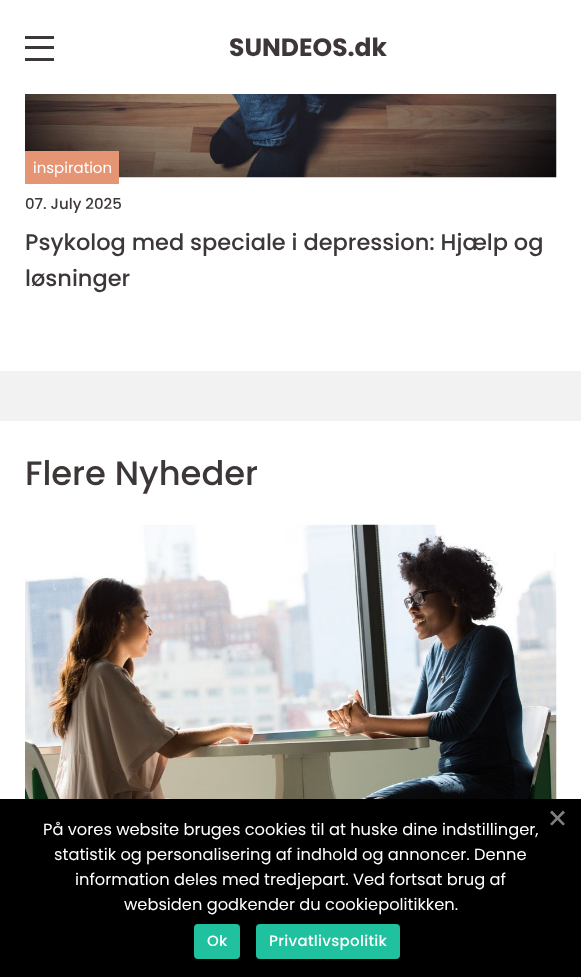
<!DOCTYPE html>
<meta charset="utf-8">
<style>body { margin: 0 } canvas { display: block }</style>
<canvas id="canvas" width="581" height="977"></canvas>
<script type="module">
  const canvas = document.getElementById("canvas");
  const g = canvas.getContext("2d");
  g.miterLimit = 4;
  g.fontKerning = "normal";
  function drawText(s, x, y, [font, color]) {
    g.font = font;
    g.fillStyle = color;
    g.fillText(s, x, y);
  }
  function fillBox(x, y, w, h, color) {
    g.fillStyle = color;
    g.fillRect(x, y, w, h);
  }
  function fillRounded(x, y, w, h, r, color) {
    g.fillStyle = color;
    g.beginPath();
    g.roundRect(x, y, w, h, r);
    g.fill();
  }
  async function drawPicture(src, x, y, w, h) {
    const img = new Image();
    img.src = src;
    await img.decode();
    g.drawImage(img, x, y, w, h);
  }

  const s1 = ["bold 25px Poppins", "#3D3737"];
  const s2 = ["15px Poppins", "#FFFFFF"];
  const s3 = ["500 15px Poppins", "#3D3737"];
  const s4 = ["500 22.5px Poppins", "#3D3737"];
  const s5 = ["500 33.75px Poppins", "#3D3737"];
  const s6 = ["16.25px Poppins", "#FFFFFF"];
  const s7 = ["500 15px Poppins", "#FFFFFF"];

  fillBox(0, 0, 581, 977, "#FFFFFF");
  fillBox(25, 36, 29, 3, "#3D3737");
  fillBox(25, 46, 29, 3, "#3D3737");
  fillBox(25, 58, 29, 3, "#3D3737");
  drawText("SUNDEOS.dk", 229, 56, s1);
  await drawPicture("pic1.png", 25, 94, 532, 84);
  fillBox(25, 151, 94, 33, "#E59474");
  drawText("inspiration", 33, 173, s2);
  drawText("07. July 2025", 25, 209, s3);
  drawText("Psykolog med speciale i depression: Hjælp og", 25, 250, s4);
  drawText("løsninger", 25, 286, s4);
  fillBox(0, 371, 581, 50, "#F2F2F2");
  drawText("Flere Nyheder", 25, 485, s5);
  await drawPicture("pic2.png", 25, 524, 532, 275);
  fillBox(0, 799, 581, 178, "#000000");
  drawText("På vores website bruges cookies til at huske dine indstillinger,", 43, 835, s6);
  drawText("statistik og personalisering af indhold og annoncer. Denne", 54, 860, s6);
  drawText("information deles med tredjepart. Ved fortsat brug af", 75, 885, s6);
  drawText("websiden godkender du cookiepolitikken.", 124, 910, s6);
  g.fillStyle = "#808080";
  g.beginPath();
  g.moveTo(563, 810.5);
  g.lineTo(565, 812.5);
  g.lineTo(552, 825.5);
  g.lineTo(550, 824);
  g.closePath();
  g.fill();
  g.beginPath();
  g.moveTo(550, 812.5);
  g.lineTo(552, 810.5);
  g.lineTo(565, 824);
  g.lineTo(563, 825.5);
  g.closePath();
  g.fill();
  fillRounded(194, 924, 46, 35, 4, "#20C19E");
  g.letterSpacing = "0.3px";
  drawText("Ok", 207, 946, s7);
  fillRounded(256, 924, 144, 35, 4, "#20C19E");
  drawText("Privatlivspolitik", 269, 946, s7);
</script>
